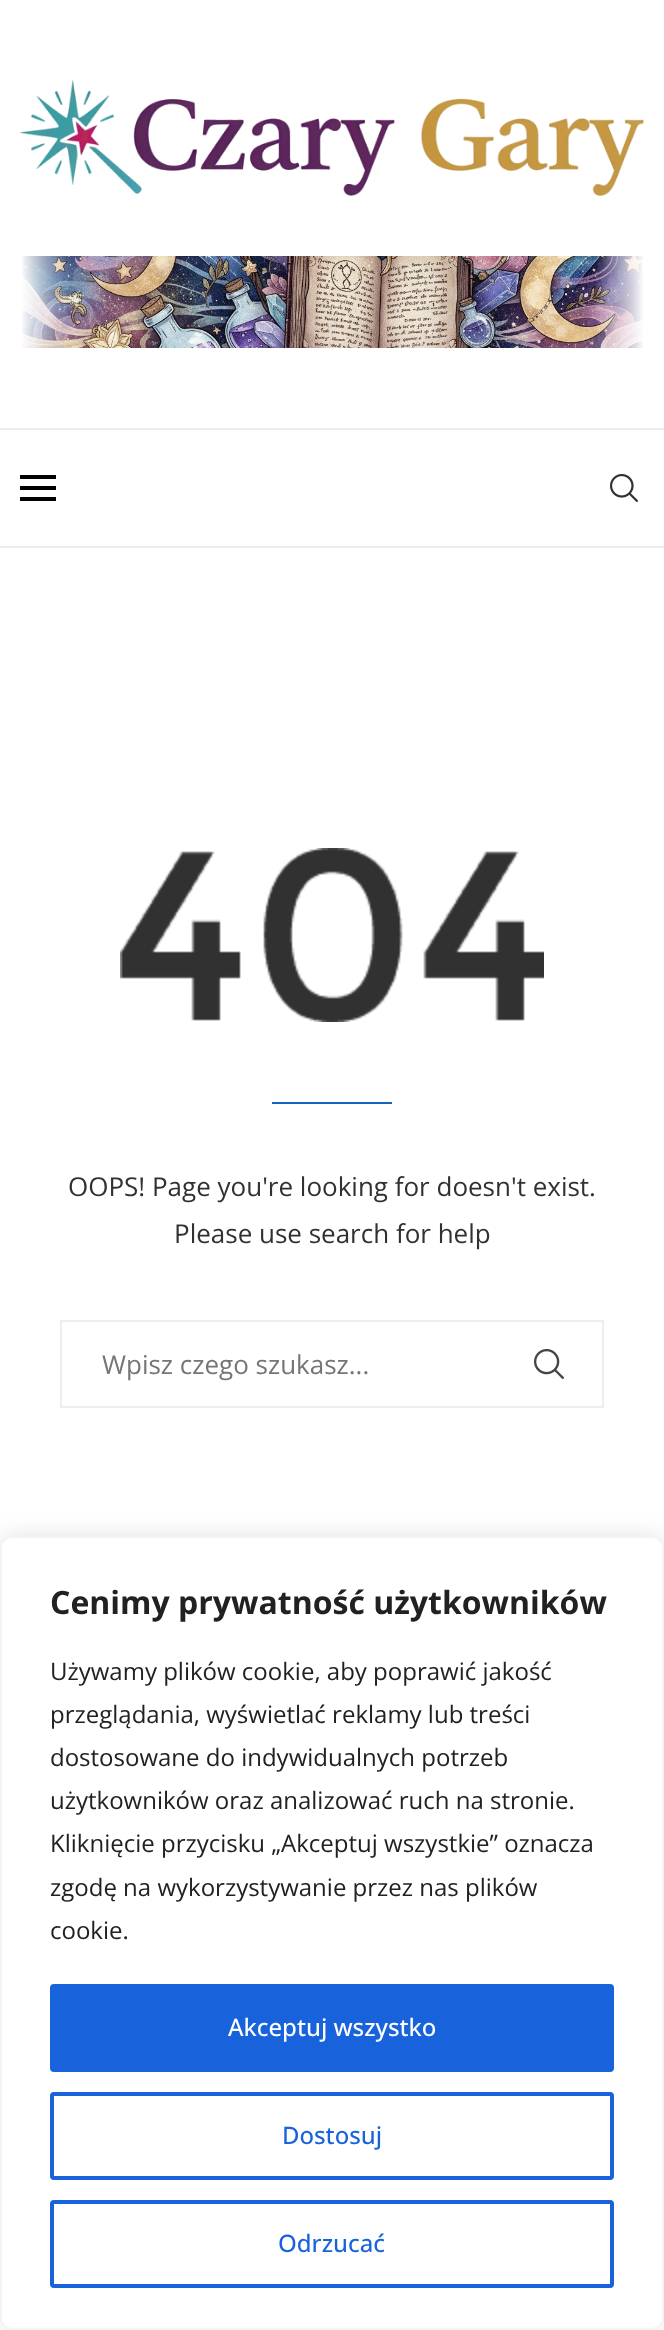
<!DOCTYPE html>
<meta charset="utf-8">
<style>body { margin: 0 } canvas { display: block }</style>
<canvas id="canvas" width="664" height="2330"></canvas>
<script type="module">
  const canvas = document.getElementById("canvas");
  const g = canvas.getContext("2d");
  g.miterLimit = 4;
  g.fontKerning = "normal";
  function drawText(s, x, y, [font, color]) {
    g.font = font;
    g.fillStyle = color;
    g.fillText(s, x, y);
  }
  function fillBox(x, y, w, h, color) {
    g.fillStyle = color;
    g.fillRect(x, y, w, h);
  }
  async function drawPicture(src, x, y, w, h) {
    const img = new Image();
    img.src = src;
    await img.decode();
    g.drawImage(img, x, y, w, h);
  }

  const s1 = ["26px Open Sans", "#313131"];
  const s2 = ["26px Open Sans", "#757575"];
  const s3 = ["bold 32px Open Sans", "#212121"];
  const s4 = ["24px Open Sans", "#212121"];
  const s5 = ["500 24px Open Sans", "#FFFFFF"];
  const s6 = ["500 24px Open Sans", "#1863DC"];

  fillBox(0, 0, 664, 2330, "#FFFFFF");
  await drawPicture("pic1.png", 20, 80, 624, 116);
  await drawPicture("pic2.png", 22, 256, 621, 92);
  fillBox(0, 428, 664, 2, "#ECECEC");
  fillBox(0, 546, 664, 2, "#ECECEC");
  fillBox(20, 475, 36, 4, "#000000");
  fillBox(20, 486, 36, 4, "#000000");
  fillBox(20, 497, 36, 4, "#000000");
  await drawPicture("pic3.png", 610, 474, 28, 28);
  await drawPicture("pic4.png", 120, 848, 424, 174);
  fillBox(272, 1102, 120, 2, "#1565C0");
  drawText("OOPS! Page you're looking for doesn't exist.", 68, 1196, s1);
  drawText("Please use search for help", 174, 1243, s1);
  g.strokeStyle = "#EEEEEE";
  g.lineWidth = 2;
  g.strokeRect(61, 1321, 542, 86);
  drawText("Wpisz czego szukasz...", 102, 1374, s2);
  await drawPicture("pic5.png", 534, 1349, 30, 30);
  g.fillStyle = "rgba(172, 171, 171, 0.3)";
  g.filter = "blur(10px)";
  g.beginPath();
  g.roundRect(0, 1534, 664, 794, 12);
  g.fill();
  g.filter = "none";
  g.fillStyle = "#FFFFFF";
  g.beginPath();
  g.roundRect(1, 1537, 662, 792, 11);
  g.fill();
  g.strokeStyle = "#F4F4F4";
  g.stroke();
  drawText("Cenimy prywatność użytkowników", 50, 1614, s3);
  drawText("Używamy plików cookie, aby poprawić jakość", 50, 1680, s4);
  drawText("przeglądania, wyświetlać reklamy lub treści", 50, 1723, s4);
  drawText("dostosowane do indywidualnych potrzeb", 50, 1766, s4);
  drawText("użytkowników oraz analizować ruch na stronie.", 50, 1809, s4);
  drawText("Kliknięcie przycisku „Akceptuj wszystkie” oznacza", 50, 1852, s4);
  drawText("zgodę na wykorzystywanie przez nas plików", 50, 1896, s4);
  drawText("cookie.", 50, 1939, s4);
  g.fillStyle = "#1863DC";
  g.beginPath();
  g.roundRect(52, 1986, 560, 84, 2);
  g.fill();
  g.strokeStyle = "#1863DC";
  g.lineWidth = 4;
  g.stroke();
  drawText("Akceptuj wszystko", 228, 2036, s5);
  g.beginPath();
  g.roundRect(52, 2094, 560, 84, 2);
  g.stroke();
  drawText("Dostosuj", 282, 2144, s6);
  g.beginPath();
  g.roundRect(52, 2202, 560, 84, 2);
  g.stroke();
  drawText("Odrzucać", 278, 2252, s6);
</script>
